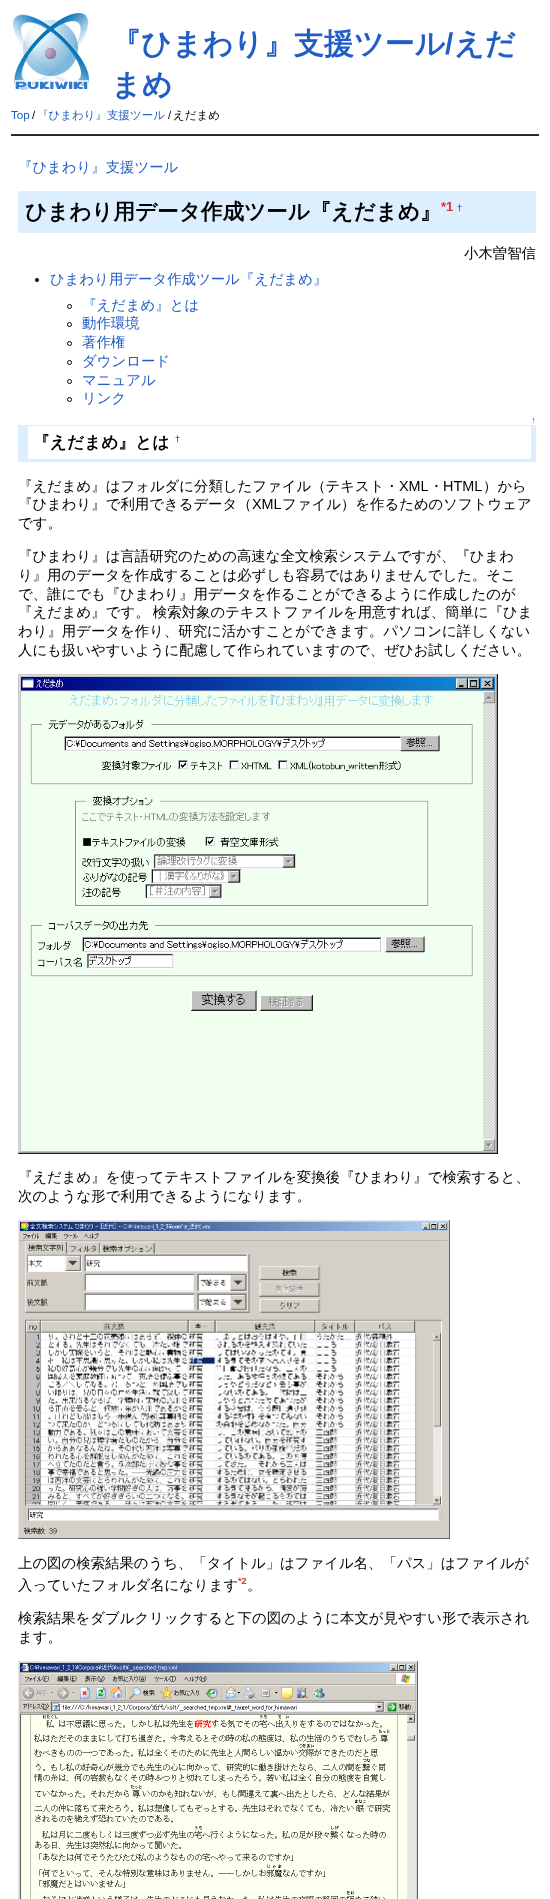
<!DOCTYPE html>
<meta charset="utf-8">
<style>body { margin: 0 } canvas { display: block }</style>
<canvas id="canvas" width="550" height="1899"></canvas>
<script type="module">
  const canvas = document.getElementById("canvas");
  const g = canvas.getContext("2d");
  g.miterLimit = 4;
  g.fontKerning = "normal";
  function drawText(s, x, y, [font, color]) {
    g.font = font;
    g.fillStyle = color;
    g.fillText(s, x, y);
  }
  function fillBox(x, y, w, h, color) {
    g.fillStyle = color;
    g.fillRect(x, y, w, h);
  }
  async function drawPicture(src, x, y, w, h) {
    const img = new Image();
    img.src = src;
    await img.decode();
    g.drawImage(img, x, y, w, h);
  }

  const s1 = ["bold 30px WenQuanYi Zen Hei", "#215DC6"];
  const s2 = ["bold 30px Liberation Sans", "#215DC6"];
  const s3 = ["11.5px Liberation Sans", "#215DC6"];
  const s4 = ["11.5px Liberation Sans", "#000000"];
  const s5 = ["500 11.5px WenQuanYi Zen Hei", "#215DC6"];
  const s6 = ["500 11.5px WenQuanYi Zen Hei", "#000000"];
  const s7 = ["500 14.4px WenQuanYi Zen Hei", "#215DC6"];
  const s8 = ["bold 21.6px WenQuanYi Zen Hei", "#000000"];
  const s9 = ["bold 13px Liberation Sans", "#DD3333"];
  const s10 = ["bold 9px Liberation Sans", "#215DC6"];
  const s11 = ["500 14.4px WenQuanYi Zen Hei", "#000000"];
  const s12 = ["9px Liberation Sans", "#215DC6"];
  const s13 = ["bold 16.75px WenQuanYi Zen Hei", "#000000"];
  const s14 = ["14.4px Liberation Sans", "#000000"];
  const s15 = ["bold 9px Liberation Sans", "#DD3333"];

  fillBox(0, 0, 550, 1899, "#FFFFFF");
  await drawPicture("pic1.png", 13, 13, 76, 77);
  drawText("『ひまわり』支援ツール", 111, 54, s1);
  drawText("/", 445, 54, s2);
  drawText("えだ", 454, 54, s1);
  drawText("まめ", 111, 95, s1);
  drawText("Top", 11, 119, s3);
  drawText("/", 32, 119, s4);
  drawText("『ひまわり』支援ツール", 37, 119, s5);
  drawText("/", 168, 119, s4);
  drawText("えだまめ", 173, 119, s6);
  fillBox(11, 134, 528, 1, "#333333");
  fillBox(11, 135, 528, 1, "#222222");
  drawText("『ひまわり』支援ツール", 18, 172, s7);
  fillBox(18, 191, 518, 42, "#DDEEFF");
  drawText("ひまわり用データ作成ツール『えだまめ』", 25, 219, s8);
  drawText("*1", 441, 211, s9);
  drawText("†", 457, 211, s10);
  drawText("小木曽智信", 464, 258, s11);
  g.beginPath();
  g.arc(37, 280, 2, 0, Math.PI * 2);
  g.fill();
  drawText("ひまわり用データ作成ツール『えだまめ』", 50, 284, s7);
  g.beginPath();
  g.arc(69.5, 306.5, 2, 0, Math.PI * 2);
  g.strokeStyle = "#000000";
  g.stroke();
  drawText("『えだまめ』とは", 82, 310, s7);
  g.beginPath();
  g.arc(69.5, 324.5, 2, 0, Math.PI * 2);
  g.stroke();
  drawText("動作環境", 82, 328, s7);
  g.beginPath();
  g.arc(69.5, 343.5, 2, 0, Math.PI * 2);
  g.stroke();
  drawText("著作権", 82, 347, s7);
  g.beginPath();
  g.arc(69.5, 362.5, 2, 0, Math.PI * 2);
  g.stroke();
  drawText("ダウンロード", 82, 366, s7);
  g.beginPath();
  g.arc(69.5, 381.5, 2, 0, Math.PI * 2);
  g.stroke();
  drawText("マニュアル", 82, 385, s7);
  g.beginPath();
  g.arc(69.5, 399.5, 2, 0, Math.PI * 2);
  g.stroke();
  drawText("リンク", 82, 403, s7);
  drawText("↑", 531, 423, s12);
  fillBox(28, 425, 508, 1, "#DDEEFF");
  fillBox(531, 425, 5, 37, "#DDEEFF");
  fillBox(28, 459, 508, 3, "#DDEEFF");
  fillBox(18, 425, 10, 37, "#DDEEFF");
  drawText("『えだまめ』とは", 33, 448, s13);
  drawText("†", 175, 442, s10);
  drawText("『えだまめ』はフォルダに分類したファイル（テキスト・", 18, 491, s11);
  drawText("XML", 399, 491, s14);
  drawText("・", 429, 491, s11);
  drawText("HTML", 443, 491, s14);
  drawText("）から", 483, 491, s11);
  drawText("『ひまわり』で利用できるデータ（", 18, 509, s11);
  drawText("XML", 252, 509, s14);
  drawText("ファイル）を作るためのソフトウェア", 282, 509, s11);
  drawText("です。", 18, 528, s11);
  drawText("『ひまわり』は言語研究のための高速な全文検索システムですが、『ひまわ", 18, 561, s11);
  drawText("り』用のデータを作成することは必ずしも容易ではありませんでした。そこ", 18, 580, s11);
  drawText("で、誰にでも『ひまわり』用データを作ることができるように作成したのが", 18, 599, s11);
  g.wordSpacing = "-1px";
  drawText("『えだまめ』です。 検索対象のテキストファイルを用意すれば、簡単に『ひま", 18, 617, s11);
  g.wordSpacing = "0px";
  drawText("わり』用データを作り、研究に活かすことができます。パソコンに詳しくない", 18, 636, s11);
  drawText("人にも扱いやすいように配慮して作られていますので、ぜひお試しください。", 18, 655, s11);
  await drawPicture("pic2.png", 18, 674, 480, 480);
  drawText("『えだまめ』を使ってテキストファイルを変換後『ひまわり』で検索すると、", 18, 1182, s11);
  drawText("次のような形で利用できるようになります。", 18, 1201, s11);
  await drawPicture("pic3.png", 18, 1220, 432, 319);
  drawText("上の図の検索結果のうち、「タイトル」はファイル名、「パス」はファイルが", 18, 1568, s11);
  drawText("入っていたフォルダ名になります", 18, 1590, s11);
  drawText("*2", 238, 1584, s15);
  drawText("。", 247, 1590, s11);
  drawText("検索結果をダブルクリックすると下の図のように本文が見やすい形で表示され", 18, 1623, s11);
  drawText("ます。", 18, 1642, s11);
  await drawPicture("pic4.png", 18, 1661, 400, 238);
</script>
